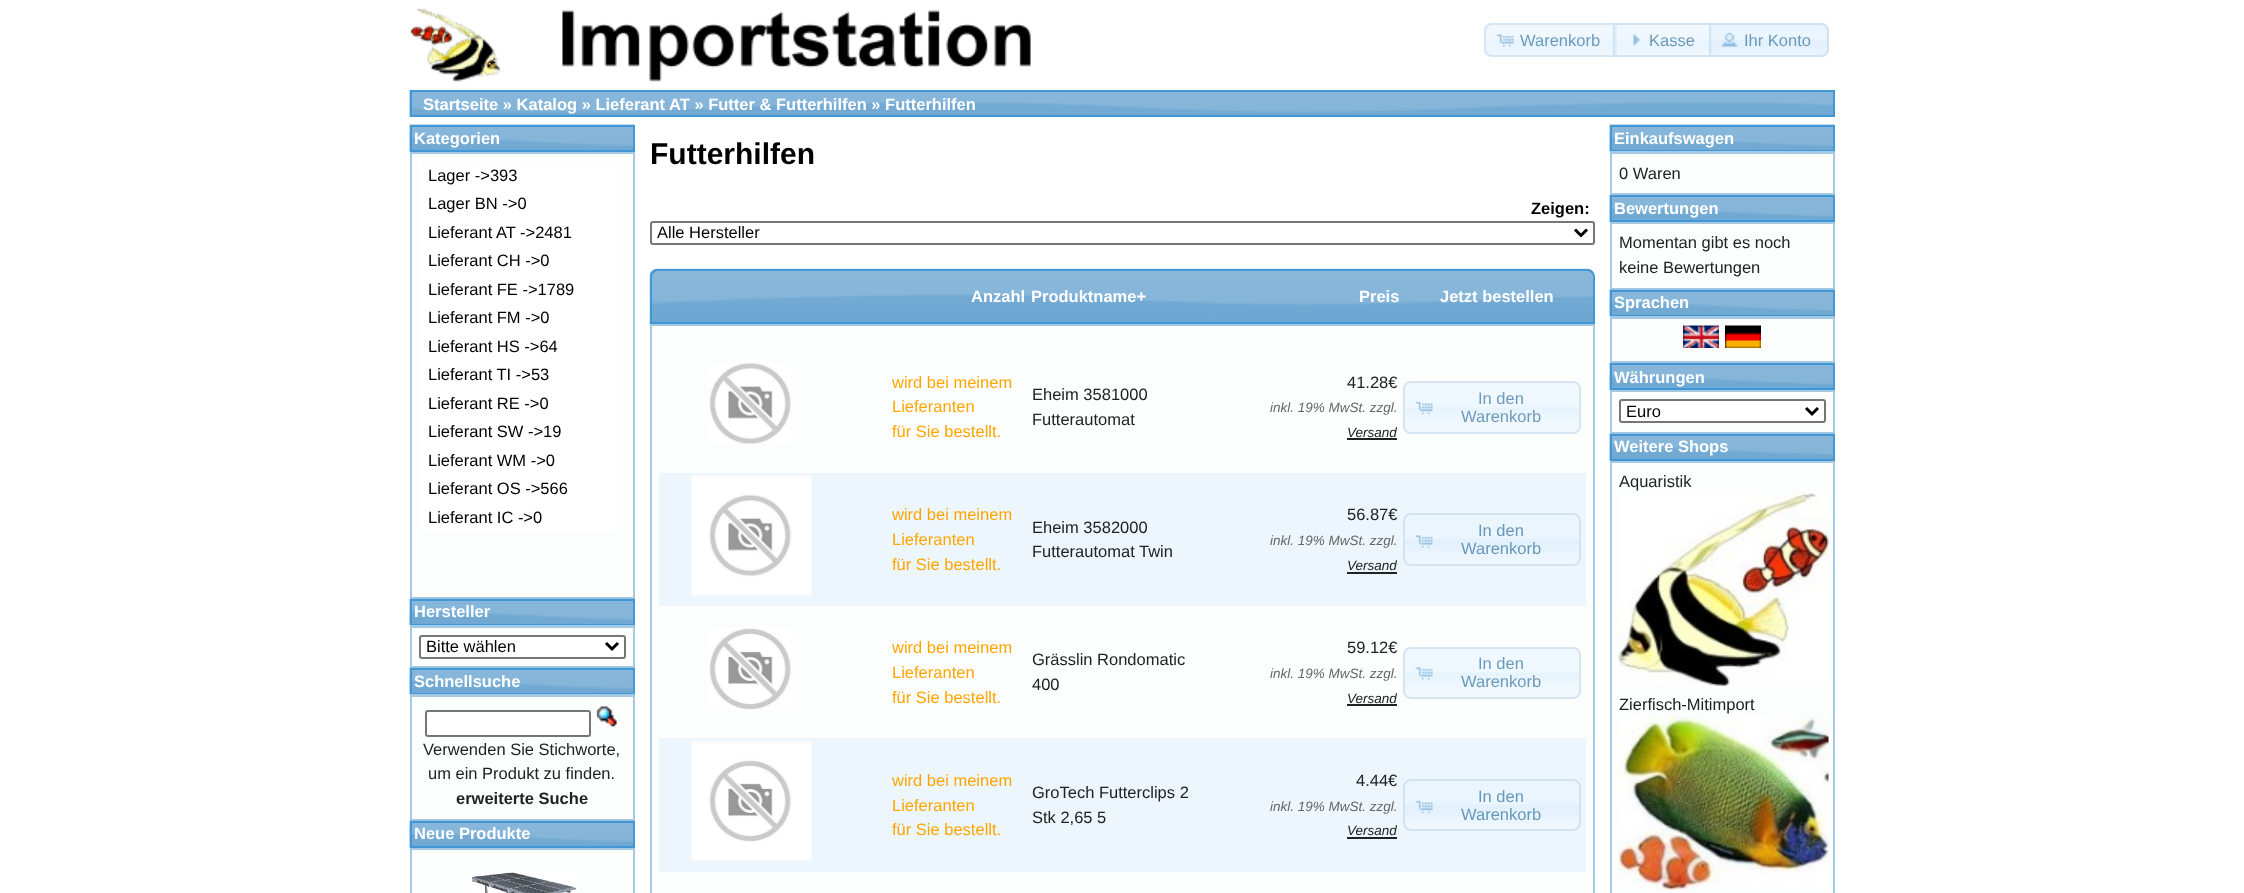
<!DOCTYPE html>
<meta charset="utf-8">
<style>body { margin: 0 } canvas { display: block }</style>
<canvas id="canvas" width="2244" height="893"></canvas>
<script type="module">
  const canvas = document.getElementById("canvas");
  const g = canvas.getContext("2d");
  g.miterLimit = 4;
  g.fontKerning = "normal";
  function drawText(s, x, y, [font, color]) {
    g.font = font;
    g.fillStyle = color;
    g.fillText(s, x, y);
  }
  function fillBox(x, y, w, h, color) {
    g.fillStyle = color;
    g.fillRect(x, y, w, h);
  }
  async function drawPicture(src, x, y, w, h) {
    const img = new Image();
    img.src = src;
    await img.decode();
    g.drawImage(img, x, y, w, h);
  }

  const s1 = ["16.5px Liberation Sans", "#6D9ABB"];
  const s2 = ["bold 16.5px Liberation Sans", "#FFFFFF"];
  const s3 = ["16.5px Liberation Sans", "#000000"];
  const s4 = ["16.5px Liberation Sans", "#222222"];
  const s5 = ["bold 16.5px Liberation Sans", "#222222"];
  const s6 = ["bold 30px Liberation Sans", "#000000"];
  const s7 = ["bold 16.5px Liberation Sans", "#000000"];
  const s8 = ["16.5px Liberation Sans", "#FFA500"];
  const s9 = ["italic 13.5px Liberation Sans", "#666666"];
  const s10 = ["italic 13.5px Liberation Sans", "#222222"];
  const s11 = ["16.5px Liberation Sans", "#6797BA"];

  fillBox(0, 0, 2244, 893, "#FFFFFF");
  await drawPicture("pic1.png", 410, 8, 621, 74);
  await drawPicture("pic2.png", 1483, 22, 134, 35);
  g.beginPath();
  g.roundRect(1485, 24, 131, 32, [7, 0, 0, 7]);
  g.strokeStyle = "#D6E6F2";
  g.lineWidth = 2;
  g.stroke();
  await drawPicture("pic3.png", 1496, 34, 18, 13);
  drawText("Warenkorb", 1520, 46, s1);
  await drawPicture("pic4.png", 1612, 22, 101, 35);
  g.strokeStyle = "rgba(197, 219, 236, 0.7)";
  g.strokeRect(1614, 24, 98, 32);
  await drawPicture("pic5.png", 1633, 34, 7, 12);
  drawText("Kasse", 1649, 46, s1);
  g.fillStyle = "rgba(223, 239, 252, 0.7)";
  g.beginPath();
  g.roundRect(1709, 23, 120, 34, [0, 8, 8, 0]);
  g.fill();
  await drawPicture("pic6.png", 1708, 22, 120, 35);
  g.beginPath();
  g.roundRect(1710, 24, 118, 32, [0, 7, 7, 0]);
  g.stroke();
  await drawPicture("pic7.png", 1721, 32, 17, 15);
  drawText("Ihr Konto", 1744, 46, s1);
  await drawPicture("pic8.png", 409, 90, 1424, 27);
  g.strokeStyle = "#4297D7";
  g.strokeRect(411, 91, 1423, 25);
  drawText("Startseite » Katalog » Lieferant AT » Futter & Futterhilfen » Futterhilfen", 423, 110, s2);
  await drawPicture("pic9.png", 409, 124, 226, 28);
  g.strokeRect(411, 126, 223, 25);
  drawText("Kategorien", 414, 144, s2);
  g.fillStyle = "#FCFDFD";
  g.beginPath();
  g.rect(411, 153, 223, 445);
  g.fill();
  g.strokeStyle = "#A6C9E2";
  g.stroke();
  fillBox(419, 161, 198, 370, "#FFFFFF");
  drawText("Lager ->393", 428, 181, s3);
  drawText("Lager BN ->0", 428, 209, s3);
  drawText("Lieferant AT ->2481", 428, 238, s3);
  drawText("Lieferant CH ->0", 428, 266, s3);
  drawText("Lieferant FE ->1789", 428, 295, s3);
  drawText("Lieferant FM ->0", 428, 323, s3);
  drawText("Lieferant HS ->64", 428, 352, s3);
  drawText("Lieferant TI ->53", 428, 380, s3);
  drawText("Lieferant RE ->0", 428, 409, s3);
  drawText("Lieferant SW ->19", 428, 437, s3);
  drawText("Lieferant WM ->0", 428, 466, s3);
  drawText("Lieferant OS ->566", 428, 494, s3);
  drawText("Lieferant IC ->0", 428, 523, s3);
  await drawPicture("pic10.png", 409, 598, 226, 28);
  g.strokeStyle = "#4297D7";
  g.strokeRect(411, 600, 223, 25);
  drawText("Hersteller", 414, 617, s2);
  g.fillStyle = "#FCFDFD";
  g.beginPath();
  g.rect(411, 627, 223, 40);
  g.fill();
  g.strokeStyle = "#A6C9E2";
  g.stroke();
  await drawPicture("pic11.png", 409, 625, 226, 1);
  g.fillStyle = "#FFFFFF";
  g.beginPath();
  g.roundRect(420, 636, 205, 22, 2);
  g.fill();
  g.strokeStyle = "#767676";
  g.stroke();
  g.beginPath();
  g.moveTo(606, 643);
  g.lineTo(612, 649);
  g.lineTo(618, 643);
  g.strokeStyle = "#000000";
  g.lineWidth = 3;
  g.stroke();
  drawText("Bitte wählen", 426, 652, s3);
  await drawPicture("pic10.png", 409, 667, 226, 28);
  g.strokeStyle = "#4297D7";
  g.lineWidth = 2;
  g.strokeRect(411, 669, 223, 25);
  drawText("Schnellsuche", 414, 687, s2);
  g.fillStyle = "#FCFDFD";
  g.beginPath();
  g.rect(411, 696, 223, 124);
  g.fill();
  g.strokeStyle = "#A6C9E2";
  g.stroke();
  await drawPicture("pic12.png", 409, 694, 226, 1);
  g.fillStyle = "#FFFFFF";
  g.beginPath();
  g.roundRect(426, 711, 164, 25, 2);
  g.fill();
  g.strokeStyle = "#767676";
  g.stroke();
  await drawPicture("pic13.png", 596, 706, 21, 21);
  drawText("Verwenden Sie Stichworte,", 423, 755, s4);
  drawText("um ein Produkt zu finden.", 428, 779, s4);
  drawText("erweiterte Suche", 456, 804, s5);
  await drawPicture("pic10.png", 409, 820, 226, 28);
  g.strokeStyle = "#4297D7";
  g.strokeRect(411, 822, 223, 25);
  drawText("Neue Produkte", 414, 839, s2);
  g.fillStyle = "#FCFDFD";
  g.beginPath();
  g.rect(411, 849, 223, 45);
  g.fill();
  g.strokeStyle = "#A6C9E2";
  g.stroke();
  await drawPicture("pic14.png", 471, 872, 106, 21);
  drawText("Futterhilfen", 650, 164, s6);
  drawText("Zeigen:", 1531, 214, s7);
  g.beginPath();
  g.roundRect(651, 222, 943, 22, 2);
  g.strokeStyle = "#767676";
  g.stroke();
  g.beginPath();
  g.moveTo(1575, 229.5);
  g.lineTo(1581, 235.5);
  g.lineTo(1587, 229.5);
  g.strokeStyle = "#000000";
  g.lineWidth = 3;
  g.stroke();
  drawText("Alle Hersteller", 657, 238, s3);
  await drawPicture("pic15.png", 649, 268, 946, 56);
  g.beginPath();
  g.roundRect(651, 270, 943, 53, [7, 7, 0, 0]);
  g.strokeStyle = "#4297D7";
  g.lineWidth = 2;
  g.stroke();
  drawText("Anzahl", 971, 302, s2);
  drawText("Produktname+", 1031, 302, s2);
  drawText("Preis", 1359, 302, s2);
  drawText("Jetzt bestellen", 1440, 302, s2);
  g.fillStyle = "#FCFDFD";
  g.beginPath();
  g.rect(651, 325, 943, 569);
  g.fill();
  g.strokeStyle = "#A6C9E2";
  g.stroke();
  await drawPicture("pic16.png", 709, 363, 82, 81);
  drawText("wird bei meinem", 892, 388, s8);
  drawText("Lieferanten", 892, 412, s8);
  drawText("für Sie bestellt.", 892, 437, s8);
  drawText("Eheim 3581000", 1032, 400, s4);
  drawText("Futterautomat", 1032, 425, s4);
  drawText("41.28€", 1347, 388, s4);
  drawText("inkl. 19% MwSt. zzgl.", 1270, 412, s9);
  drawText("Versand", 1347, 437, s10);
  fillBox(1347, 438, 50, 2, "#222222");
  await drawPicture("pic17.png", 1402, 381, 179, 52);
  g.beginPath();
  g.roundRect(1404, 382, 176, 51, 7);
  g.strokeStyle = "#D6E5F1";
  g.stroke();
  await drawPicture("pic18.png", 1415, 401, 18, 14);
  drawText("In den", 1478, 404, s1);
  drawText("Warenkorb", 1461, 422, s1);
  fillBox(659, 473, 927, 133, "#ECF6FC");
  await drawPicture("pic19.png", 691, 475, 121, 121);
  drawText("wird bei meinem", 892, 520, s8);
  drawText("Lieferanten", 892, 545, s8);
  drawText("für Sie bestellt.", 892, 570, s8);
  drawText("Eheim 3582000", 1032, 533, s4);
  drawText("Futterautomat Twin", 1032, 557, s4);
  drawText("56.87€", 1347, 520, s4);
  drawText("inkl. 19% MwSt. zzgl.", 1270, 545, s9);
  drawText("Versand", 1347, 570, s10);
  fillBox(1347, 572, 50, 2, "#222222");
  await drawPicture("pic20.png", 1403, 513, 178, 52);
  g.beginPath();
  g.roundRect(1404, 514, 176, 51, 7);
  g.strokeStyle = "#D1E3F1";
  g.stroke();
  await drawPicture("pic21.png", 1415, 535, 18, 13);
  drawText("In den", 1478, 536, s11);
  drawText("Warenkorb", 1461, 554, s11);
  await drawPicture("pic22.png", 709, 628, 82, 82);
  drawText("wird bei meinem", 892, 653, s8);
  drawText("Lieferanten", 892, 678, s8);
  drawText("für Sie bestellt.", 892, 703, s8);
  drawText("Grässlin Rondomatic", 1032, 665, s4);
  drawText("400", 1032, 690, s4);
  drawText("59.12€", 1347, 653, s4);
  drawText("inkl. 19% MwSt. zzgl.", 1270, 678, s9);
  drawText("Versand", 1347, 703, s10);
  fillBox(1347, 704, 50, 2, "#222222");
  await drawPicture("pic23.png", 1402, 647, 179, 52);
  g.beginPath();
  g.roundRect(1404, 648, 176, 50, 7);
  g.strokeStyle = "#D6E5F1";
  g.stroke();
  await drawPicture("pic24.png", 1415, 667, 18, 13);
  drawText("In den", 1478, 669, s1);
  drawText("Warenkorb", 1461, 687, s1);
  fillBox(659, 738, 927, 134, "#ECF6FC");
  await drawPicture("pic25.png", 691, 741, 121, 120);
  drawText("wird bei meinem", 892, 786, s8);
  drawText("Lieferanten", 892, 811, s8);
  drawText("für Sie bestellt.", 892, 835, s8);
  drawText("GroTech Futterclips 2", 1032, 798, s4);
  drawText("Stk 2,65 5", 1032, 823, s4);
  drawText("4.44€", 1356, 786, s4);
  drawText("inkl. 19% MwSt. zzgl.", 1270, 811, s9);
  drawText("Versand", 1347, 835, s10);
  fillBox(1347, 837, 50, 2, "#222222");
  await drawPicture("pic26.png", 1403, 779, 178, 52);
  g.beginPath();
  g.roundRect(1404, 780, 176, 50, 7);
  g.strokeStyle = "#D1E3F1";
  g.stroke();
  await drawPicture("pic27.png", 1415, 800, 18, 14);
  drawText("In den", 1478, 802, s11);
  drawText("Warenkorb", 1461, 820, s11);
  await drawPicture("pic28.png", 1609, 124, 226, 28);
  g.strokeStyle = "#4297D7";
  g.strokeRect(1611, 126, 223, 25);
  drawText("Einkaufswagen", 1614, 144, s2);
  g.fillStyle = "#FCFDFD";
  g.beginPath();
  g.rect(1611, 153, 223, 41);
  g.fill();
  g.strokeStyle = "#A6C9E2";
  g.stroke();
  await drawPicture("pic11.png", 1609, 151, 226, 1);
  drawText("0 Waren", 1619, 179, s4);
  await drawPicture("pic29.png", 1609, 195, 224, 27);
  g.strokeStyle = "#4297D7";
  g.strokeRect(1611, 196, 223, 25);
  drawText("Bewertungen", 1614, 214, s2);
  g.fillStyle = "#FCFDFD";
  g.beginPath();
  g.rect(1611, 223, 223, 66);
  g.fill();
  g.strokeStyle = "#A6C9E2";
  g.stroke();
  drawText("Momentan gibt es noch", 1619, 248, s4);
  drawText("keine Bewertungen", 1619, 273, s4);
  await drawPicture("pic30.png", 1609, 289, 226, 28);
  g.strokeStyle = "#4297D7";
  g.strokeRect(1611, 291, 223, 25);
  drawText("Sprachen", 1614, 308, s2);
  g.fillStyle = "#FCFDFD";
  g.beginPath();
  g.rect(1611, 318, 223, 44);
  g.fill();
  g.strokeStyle = "#A6C9E2";
  g.stroke();
  await drawPicture("pic11.png", 1609, 316, 226, 1);
  await drawPicture("pic31.png", 1683, 325, 36, 23);
  await drawPicture("pic32.png", 1725, 325, 36, 23);
  await drawPicture("pic29.png", 1609, 363, 224, 27);
  g.strokeStyle = "#4297D7";
  g.strokeRect(1611, 364, 223, 25);
  drawText("Währungen", 1614, 383, s2);
  g.fillStyle = "#FCFDFD";
  g.beginPath();
  g.rect(1611, 391, 223, 42);
  g.fill();
  g.strokeStyle = "#A6C9E2";
  g.stroke();
  g.fillStyle = "#FFFFFF";
  g.beginPath();
  g.roundRect(1620, 400, 205, 22, 2);
  g.fill();
  g.strokeStyle = "#767676";
  g.stroke();
  g.beginPath();
  g.moveTo(1806, 408);
  g.lineTo(1812, 414);
  g.lineTo(1818, 408);
  g.strokeStyle = "#000000";
  g.lineWidth = 3;
  g.stroke();
  drawText("Euro", 1626, 417, s3);
  await drawPicture("pic30.png", 1609, 433, 226, 28);
  g.strokeStyle = "#4297D7";
  g.lineWidth = 2;
  g.strokeRect(1611, 435, 223, 25);
  drawText("Weitere Shops", 1614, 452, s2);
  g.fillStyle = "#FCFDFD";
  g.beginPath();
  g.rect(1611, 462, 223, 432);
  g.fill();
  g.strokeStyle = "#A6C9E2";
  g.stroke();
  drawText("Aquaristik", 1619, 487, s4);
  await drawPicture("pic33.png", 1618, 493, 211, 193);
  drawText("Zierfisch-Mitimport", 1619, 710, s4);
  await drawPicture("pic34.png", 1618, 717, 211, 173);
</script>
